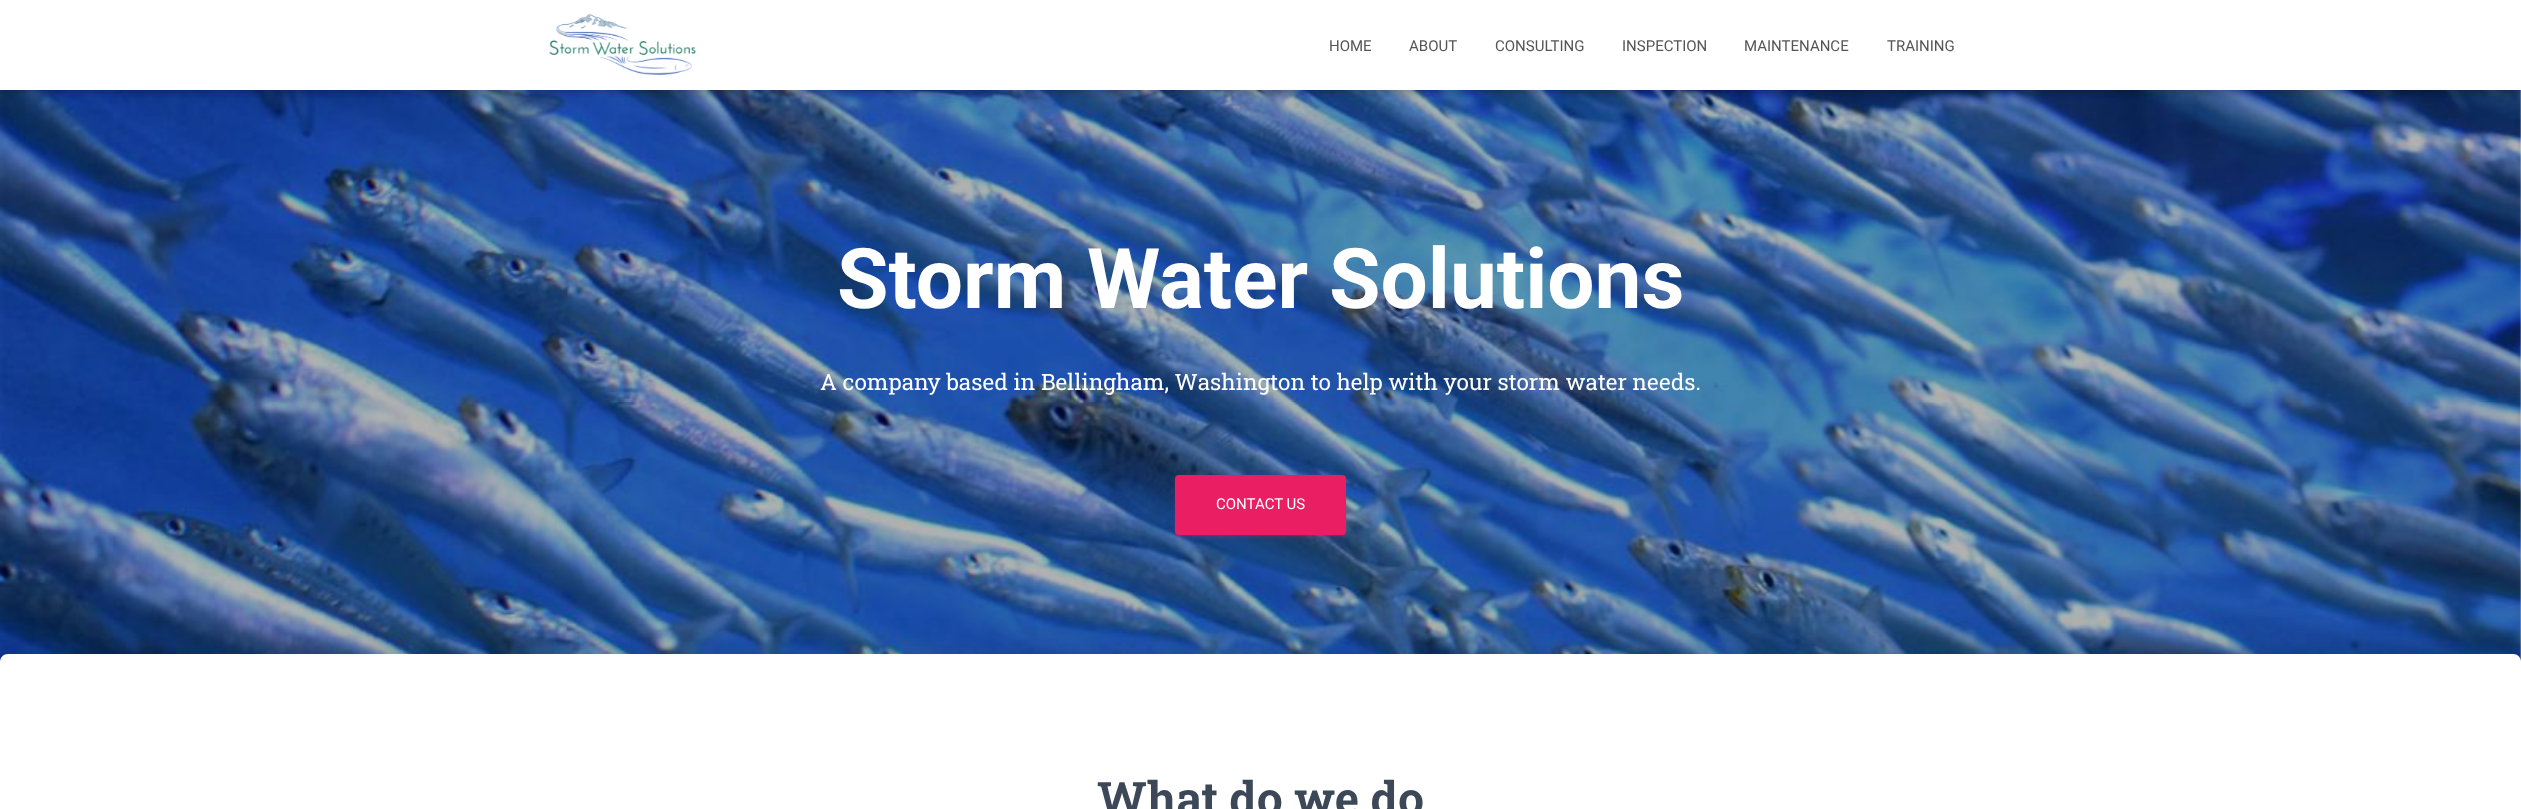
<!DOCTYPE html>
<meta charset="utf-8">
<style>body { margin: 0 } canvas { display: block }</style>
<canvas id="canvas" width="2521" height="809"></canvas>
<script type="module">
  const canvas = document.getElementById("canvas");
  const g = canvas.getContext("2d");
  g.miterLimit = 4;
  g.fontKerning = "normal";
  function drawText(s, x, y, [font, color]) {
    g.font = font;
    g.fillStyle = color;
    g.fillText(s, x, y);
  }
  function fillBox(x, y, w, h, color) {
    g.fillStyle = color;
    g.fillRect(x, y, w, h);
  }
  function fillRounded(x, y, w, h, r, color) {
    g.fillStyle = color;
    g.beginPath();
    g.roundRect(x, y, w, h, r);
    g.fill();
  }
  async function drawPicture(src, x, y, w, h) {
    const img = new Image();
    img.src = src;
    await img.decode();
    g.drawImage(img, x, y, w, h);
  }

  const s1 = ["15px Roboto", "#555555"];
  const s2 = ["bold 83.75px Roboto", "#FFFFFF"];
  const s3 = ["22.5px Roboto Slab", "#FFFFFF"];
  const s4 = ["15px Roboto", "#FFFFFF"];
  const s5 = ["bold 46.25px Roboto Slab", "#3C4858"];

  fillBox(0, 0, 2521, 809, "#FFFFFF");
  await drawPicture("pic2.png", 0, 90, 2521, 572);
  g.fillStyle = "rgba(0, 0, 0, 0.1)";
  g.filter = "blur(3px)";
  g.beginPath();
  g.rect(3, 8, 2516, 85);
  g.fill();
  g.filter = "none";
  g.fillStyle = "rgba(0, 0, 0, 0.12)";
  g.filter = "blur(6px)";
  g.beginPath();
  g.rect(0, 1, 2521, 90);
  g.fill();
  g.filter = "none";
  g.fillStyle = "rgba(0, 0, 0, 0.42)";
  g.filter = "blur(6px)";
  g.beginPath();
  g.rect(8, 9, 2506, 75);
  g.fill();
  g.filter = "none";
  fillBox(0, 0, 2521, 90, "#FFFFFF");
  await drawPicture("pic1.png", 549, 13, 147, 62);
  drawText("HOME", 1329, 51, s1);
  drawText("ABOUT", 1409, 51, s1);
  drawText("CONSULTING", 1495, 51, s1);
  drawText("INSPECTION", 1622, 51, s1);
  drawText("MAINTENANCE", 1744, 51, s1);
  drawText("TRAINING", 1887, 51, s1);
  drawText("Storm Water Solutions", 837, 308, s2);
  drawText("A company based in Bellingham, Washington to help with your storm water needs.", 820, 390, s3);
  g.fillStyle = "rgba(233, 30, 99, 0.12)";
  g.filter = "blur(3px)";
  g.beginPath();
  g.roundRect(1175, 476, 171, 60, 4);
  g.fill();
  g.filter = "none";
  g.fillStyle = "rgba(233, 30, 99, 0.2)";
  g.filter = "blur(0.5px)";
  g.beginPath();
  g.roundRect(1178, 481, 166, 55, 1);
  g.fill();
  g.filter = "none";
  g.fillStyle = "rgba(233, 30, 99, 0.14)";
  g.filter = "blur(1px)";
  g.beginPath();
  g.roundRect(1175, 478, 171, 60, 4);
  g.fill();
  g.filter = "none";
  fillRounded(1175, 475, 171, 60, 4, "#E91E63");
  drawText("CONTACT US", 1216, 509, s4);
  g.fillStyle = "rgba(0, 0, 0, 0.12)";
  g.filter = "blur(19px)";
  g.beginPath();
  g.roundRect(-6, 655, 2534, 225, 14);
  g.fill();
  g.filter = "none";
  g.fillStyle = "#FFFFFF";
  g.beginPath();
  g.moveTo(8, 654);
  g.lineTo(2513, 654);
  g.bezierCurveTo(2517.5, 654, 2521, 657.5, 2521, 662);
  g.lineTo(2521, 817);
  g.lineTo(0, 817);
  g.lineTo(0, 662);
  g.bezierCurveTo(0, 657.5, 3.5, 654, 8, 654);
  g.closePath();
  g.fill();
  drawText("What do we do", 1097, 815, s5);
</script>
